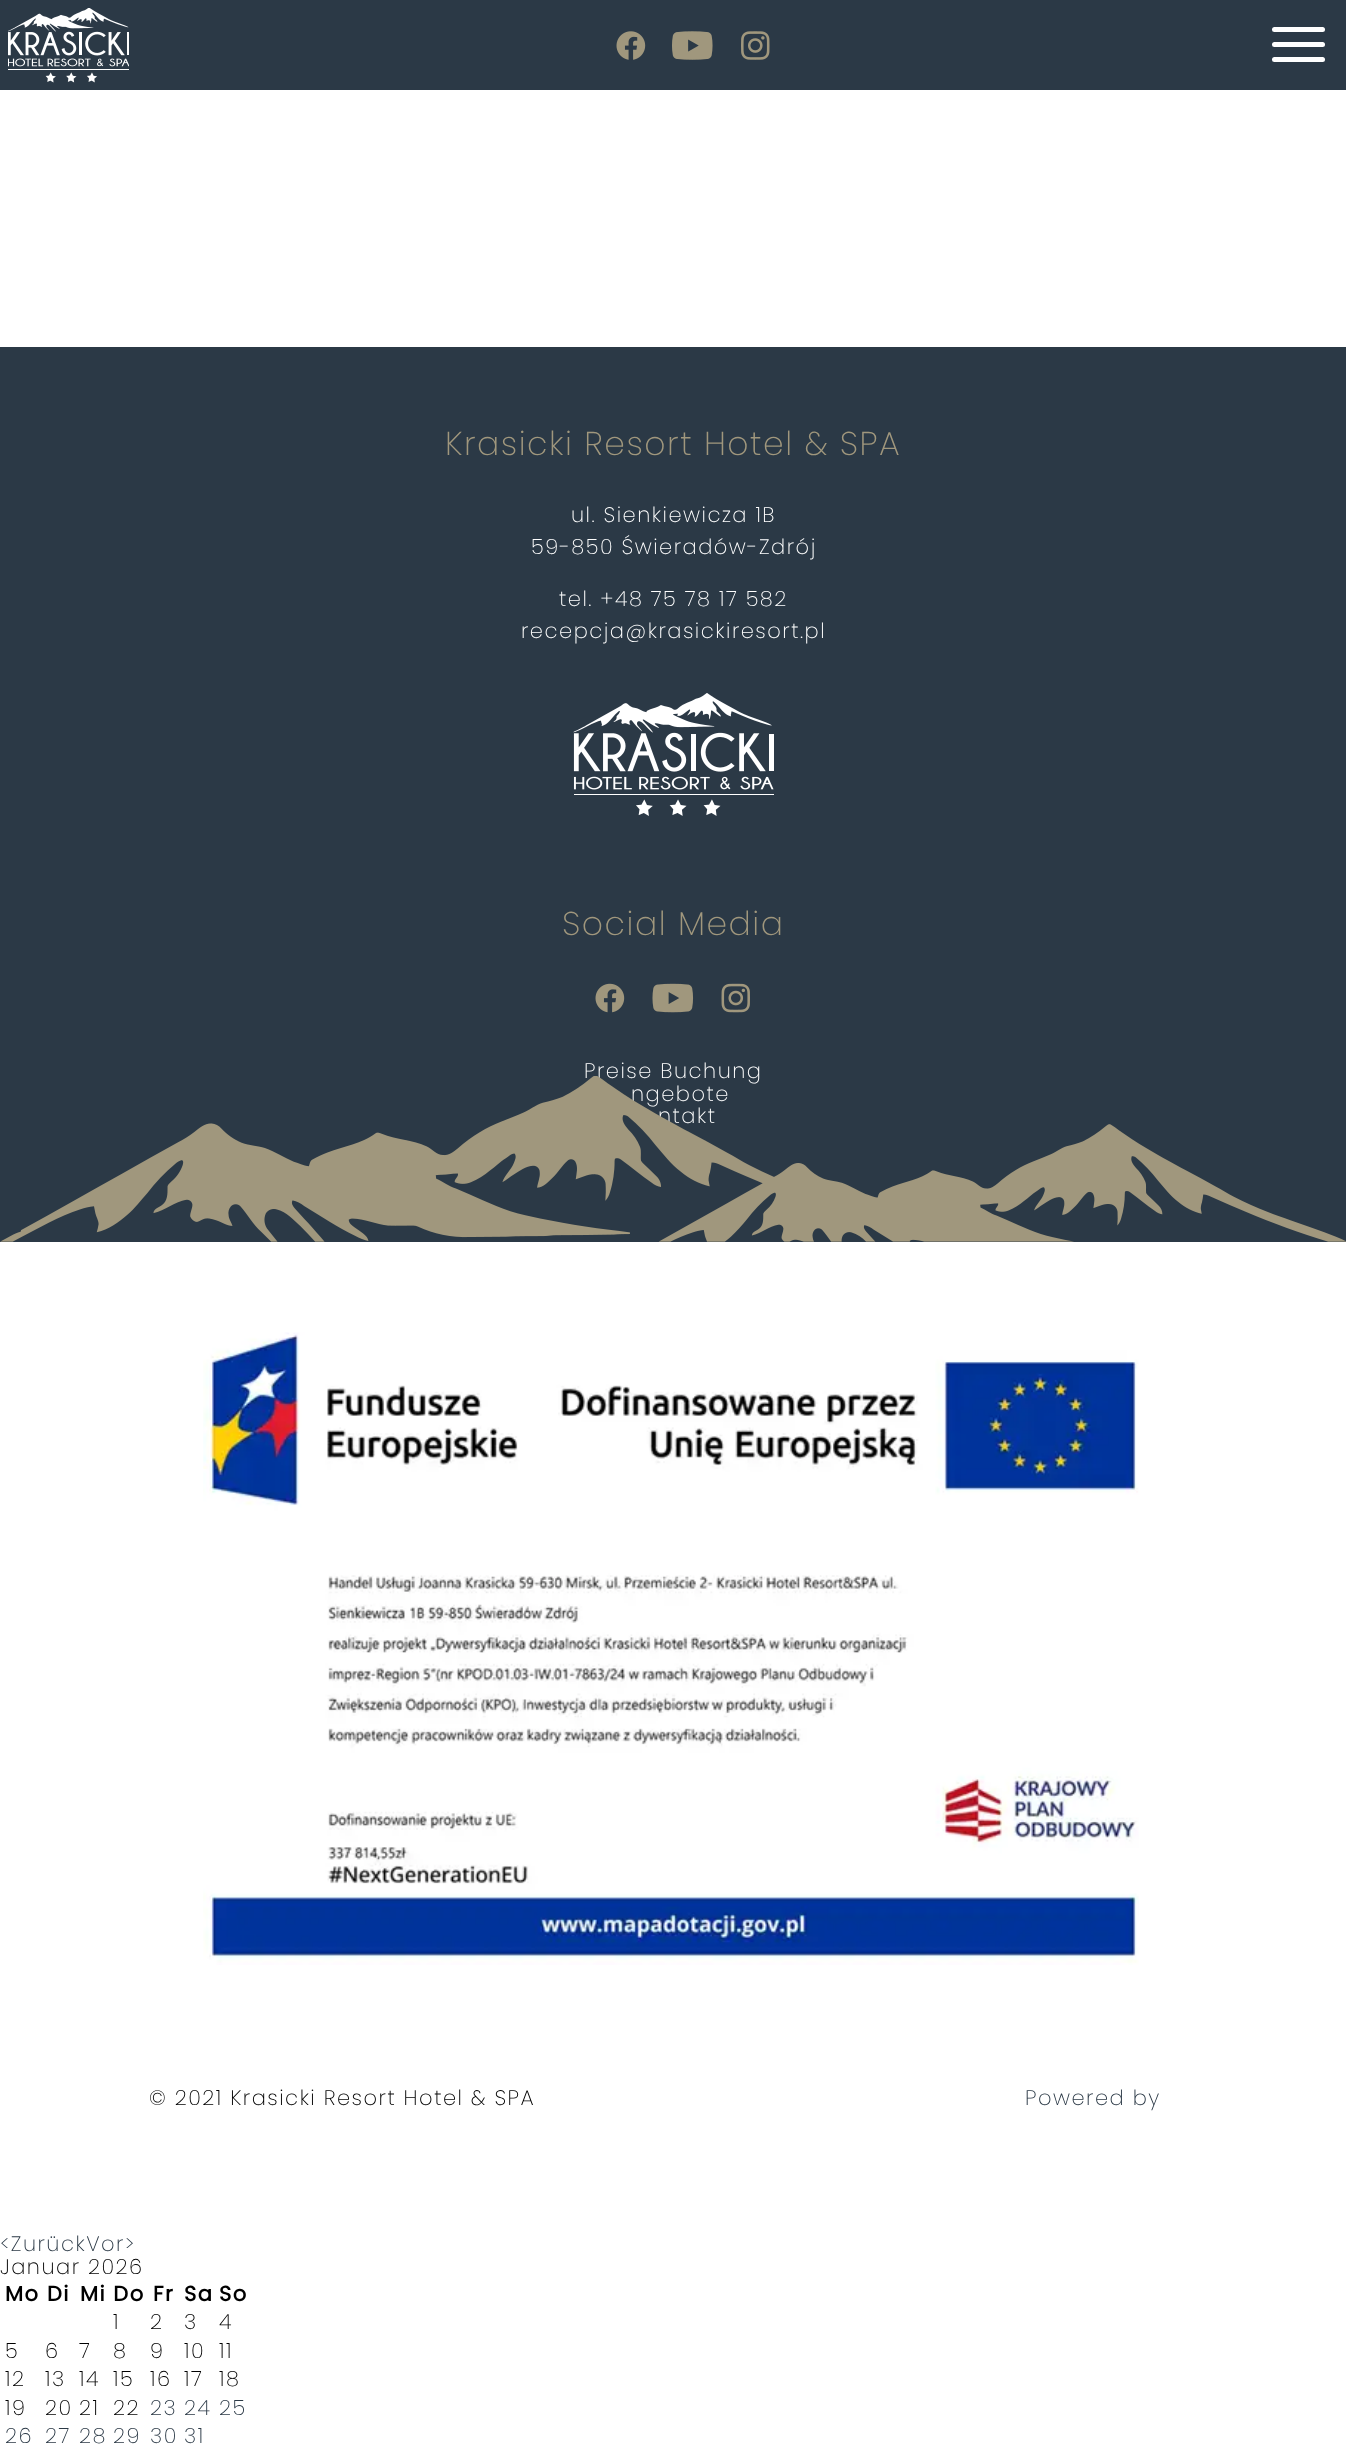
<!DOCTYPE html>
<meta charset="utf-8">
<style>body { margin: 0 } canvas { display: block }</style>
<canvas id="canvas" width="1346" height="2453"></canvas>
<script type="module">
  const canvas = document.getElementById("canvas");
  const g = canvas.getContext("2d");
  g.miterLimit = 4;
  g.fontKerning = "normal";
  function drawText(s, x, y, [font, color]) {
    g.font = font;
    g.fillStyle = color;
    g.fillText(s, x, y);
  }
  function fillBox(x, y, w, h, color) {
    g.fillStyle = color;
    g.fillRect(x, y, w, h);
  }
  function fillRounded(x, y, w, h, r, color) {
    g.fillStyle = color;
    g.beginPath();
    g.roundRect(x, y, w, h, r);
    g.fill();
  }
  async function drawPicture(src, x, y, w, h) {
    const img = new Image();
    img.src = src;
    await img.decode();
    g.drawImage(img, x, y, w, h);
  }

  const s1 = ["200 33px Poppins", "#A0977D"];
  const s2 = ["200 21px Poppins", "#FFFFFF"];
  const s3 = ["200 21px Poppins", "#000000"];
  const s4 = ["200 21px Poppins", "#2B3946"];
  const s5 = ["bold 21px Poppins", "#000000"];

  fillBox(0, 0, 1346, 2453, "#FFFFFF");
  fillBox(0, 0, 1346, 90, "#2B3946");
  await drawPicture("pic1.png", 8, 8, 121, 75);
  await drawPicture("pic2.png", 616, 31, 30, 29);
  await drawPicture("pic3.png", 672, 31, 41, 29);
  await drawPicture("pic4.png", 741, 31, 29, 29);
  fillRounded(1272, 42, 53, 5, 2.5, "#FFFFFF");
  fillRounded(1272, 27, 53, 5, 2.5, "#FFFFFF");
  fillRounded(1272, 57, 53, 5, 2.5, "#FFFFFF");
  fillBox(0, 347, 1346, 895, "#2B3946");
  g.letterSpacing = "1.5px";
  drawText("Krasicki Resort Hotel & SPA", 445, 455, s1);
  drawText("ul. Sienkiewicza 1B", 571, 522, s2);
  drawText("59-850 Świeradów-Zdrój", 531, 554, s2);
  drawText("tel. +48 75 78 17 582", 559, 606, s2);
  drawText("recepcja@krasickiresort.pl", 521, 638, s2);
  await drawPicture("pic5.png", 573, 693, 201, 123);
  drawText("Social Media", 562, 935, s1);
  await drawPicture("pic6.png", 595, 983, 30, 30);
  await drawPicture("pic7.png", 652, 983, 42, 30);
  await drawPicture("pic8.png", 721, 983, 29, 30);
  drawText("Preise Buchung", 584, 1078, s2);
  drawText("ngebote", 631, 1101, s2);
  drawText("ntakt", 658, 1123, s2);
  await drawPicture("pic9.png", 0, 1076, 1346, 166);
  await drawPicture("pic10.png", 203, 1332, 936, 633);
  drawText("© 2021 Krasicki Resort Hotel & SPA", 149, 2105, s3);
  drawText("Powered by", 1025, 2105, s4);
  drawText("<ZurückVor>", 0, 2251, s4);
  drawText("Januar 2026", 0, 2274, s3);
  drawText("Mo", 5, 2301, s5);
  drawText("Di", 47, 2301, s5);
  drawText("Mi Do", 80, 2301, s5);
  drawText("Fr", 153, 2301, s5);
  drawText("Sa", 184, 2301, s5);
  drawText("So", 219, 2301, s5);
  drawText("1", 113, 2329, s3);
  drawText("2", 150, 2329, s3);
  drawText("3", 184, 2329, s3);
  drawText("4", 219, 2329, s3);
  drawText("5", 5, 2358, s3);
  drawText("6", 45, 2358, s3);
  drawText("7", 79, 2358, s3);
  drawText("8", 113, 2358, s3);
  drawText("9", 150, 2358, s3);
  drawText("10", 184, 2358, s3);
  drawText("11", 219, 2358, s3);
  drawText("12", 5, 2386, s3);
  drawText("13", 45, 2386, s3);
  drawText("14", 79, 2386, s3);
  drawText("15", 113, 2386, s3);
  drawText("16", 150, 2386, s3);
  drawText("17", 184, 2386, s3);
  drawText("18", 219, 2386, s3);
  drawText("19", 5, 2415, s3);
  drawText("20", 45, 2415, s3);
  drawText("21", 79, 2415, s3);
  drawText("22", 113, 2415, s3);
  drawText("23", 150, 2415, s4);
  drawText("24", 184, 2415, s4);
  drawText("25", 219, 2415, s4);
  drawText("26", 5, 2443, s4);
  drawText("27", 45, 2443, s4);
  drawText("28", 79, 2443, s4);
  drawText("29", 113, 2443, s4);
  drawText("30", 150, 2443, s4);
  drawText("31", 184, 2443, s4);
</script>
